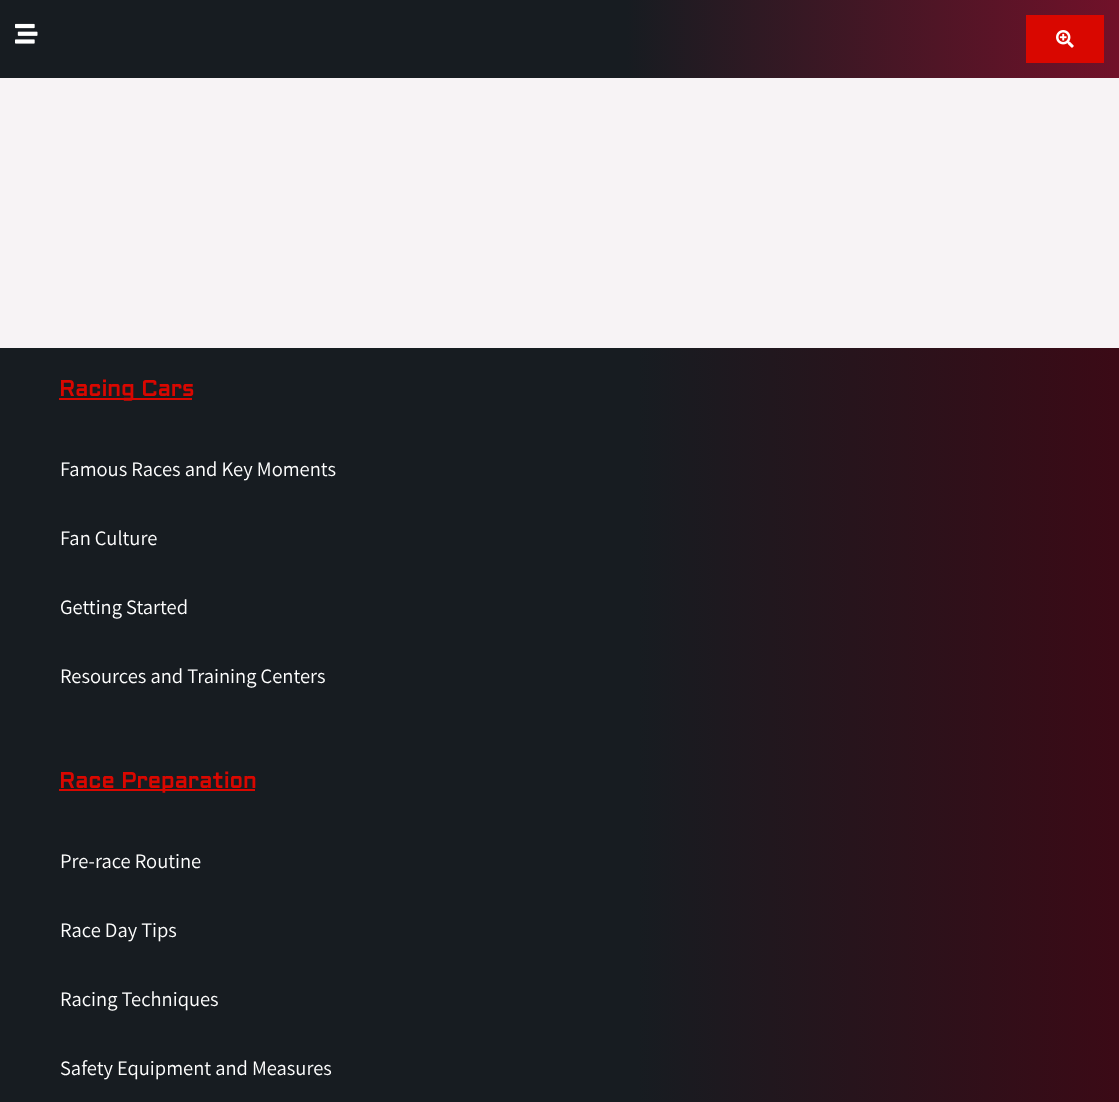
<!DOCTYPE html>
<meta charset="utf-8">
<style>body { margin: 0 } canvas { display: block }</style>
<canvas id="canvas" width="1119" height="1102"></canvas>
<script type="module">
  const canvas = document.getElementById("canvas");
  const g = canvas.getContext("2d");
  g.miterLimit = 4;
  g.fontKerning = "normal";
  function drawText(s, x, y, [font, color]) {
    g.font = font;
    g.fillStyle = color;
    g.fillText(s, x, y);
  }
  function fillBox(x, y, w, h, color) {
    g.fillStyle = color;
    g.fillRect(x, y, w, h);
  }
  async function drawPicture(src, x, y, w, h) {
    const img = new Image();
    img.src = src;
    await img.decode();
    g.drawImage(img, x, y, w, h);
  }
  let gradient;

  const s1 = ["bold 22px Aldrich", "#D90700"];
  const s2 = ["20.5px Assistant", "#FFFFFF"];

  fillBox(0, 0, 1119, 1102, "#F7F3F5");
  gradient = g.createLinearGradient(0, 39, 1119, 39);
  gradient.addColorStop(0.56, "#171C21");
  gradient.addColorStop(1, "#711129");
  g.fillStyle = gradient;
  g.fillRect(0, 0, 1119, 78);
  await drawPicture("pic1.png", 15, 23, 23, 21);
  fillBox(1026, 15, 78, 48, "#D90700");
  await drawPicture("pic2.png", 1056, 30, 18, 18);
  gradient = g.createLinearGradient(0, 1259, 1119, 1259);
  gradient.addColorStop(0.57, "#171C21");
  gradient.addColorStop(1, "#3B0A16");
  g.fillStyle = gradient;
  g.fillRect(0, 348, 1119, 754);
  fillBox(59, 398, 133, 2, "#D90700");
  drawText("Racing Cars", 59, 396, s1);
  drawText("Famous Races and Key Moments", 60, 476, s2);
  drawText("Fan Culture", 60, 545, s2);
  drawText("Getting Started", 60, 614, s2);
  drawText("Resources and Training Centers", 60, 683, s2);
  fillBox(59, 789, 196, 2, "#D90700");
  drawText("Race Preparation", 59, 788, s1);
  drawText("Pre-race Routine", 60, 868, s2);
  drawText("Race Day Tips", 60, 937, s2);
  drawText("Racing Techniques", 60, 1006, s2);
  drawText("Safety Equipment and Measures", 60, 1075, s2);
</script>
